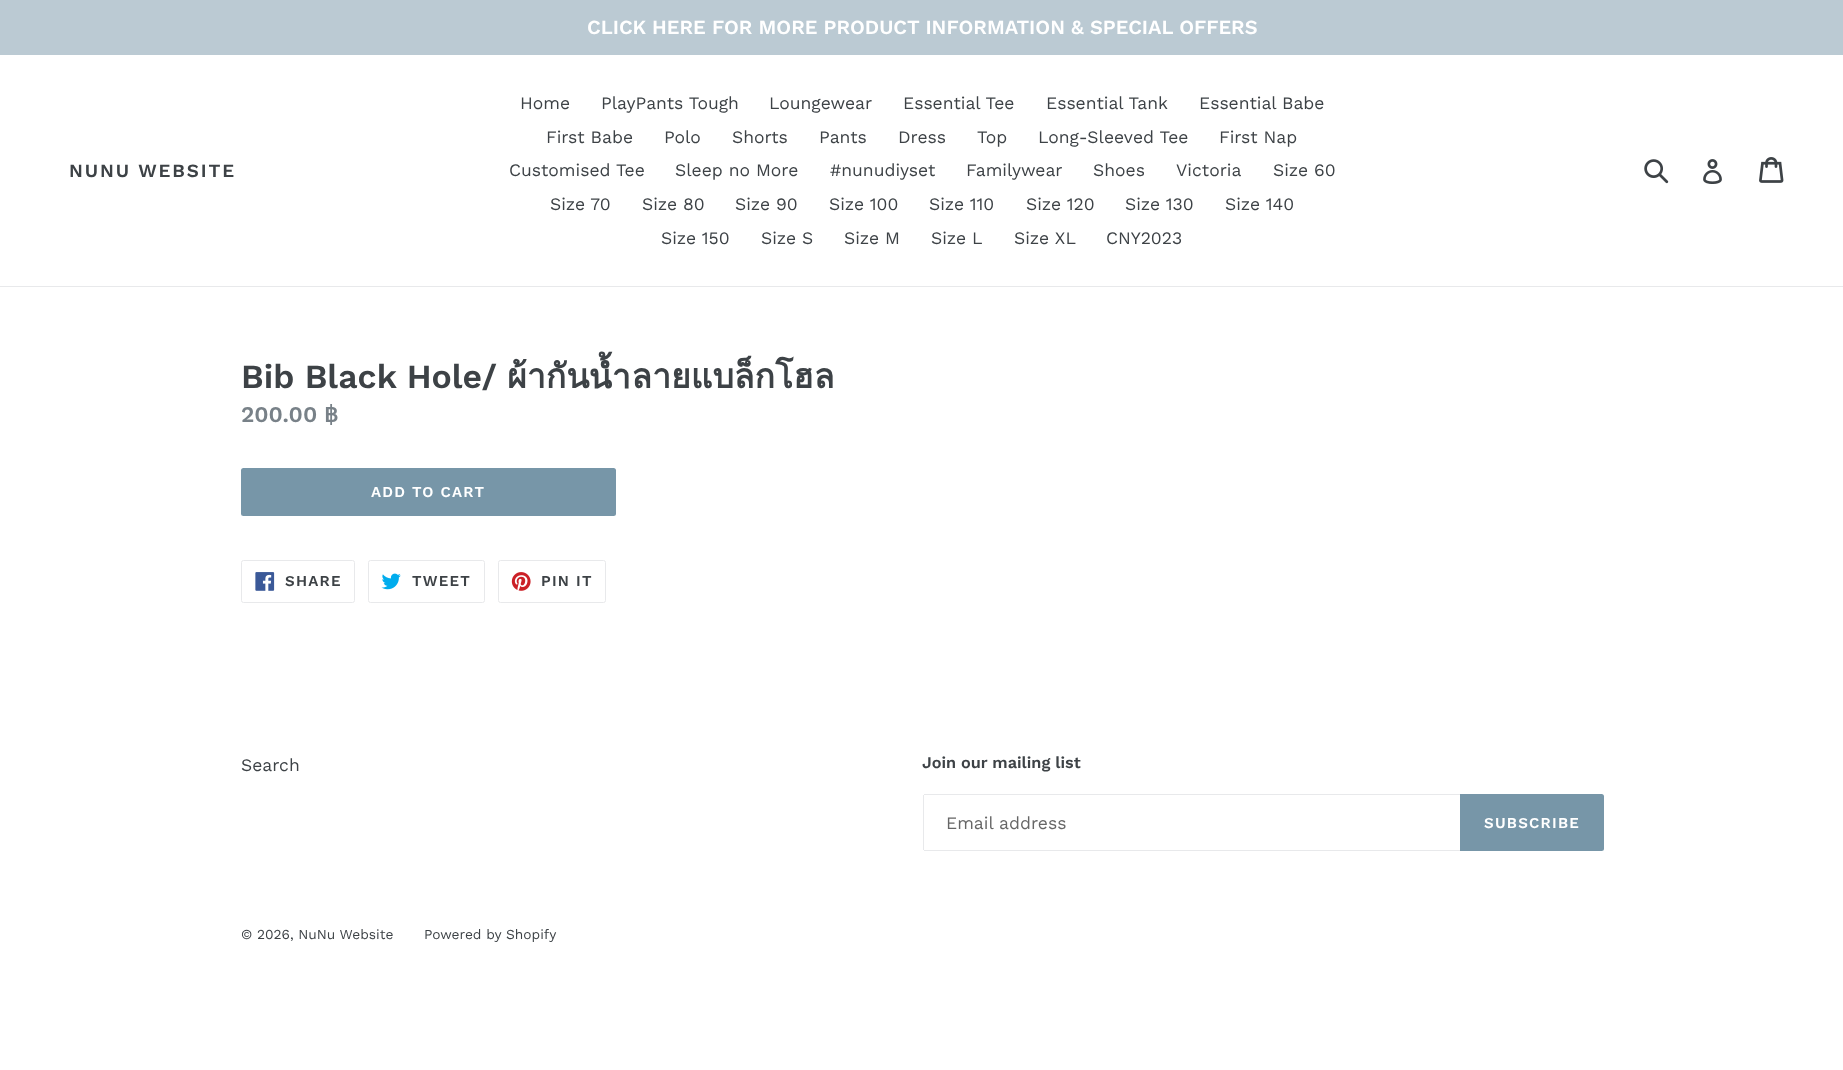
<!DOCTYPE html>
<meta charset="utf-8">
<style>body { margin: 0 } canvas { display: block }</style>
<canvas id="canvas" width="1843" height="1070"></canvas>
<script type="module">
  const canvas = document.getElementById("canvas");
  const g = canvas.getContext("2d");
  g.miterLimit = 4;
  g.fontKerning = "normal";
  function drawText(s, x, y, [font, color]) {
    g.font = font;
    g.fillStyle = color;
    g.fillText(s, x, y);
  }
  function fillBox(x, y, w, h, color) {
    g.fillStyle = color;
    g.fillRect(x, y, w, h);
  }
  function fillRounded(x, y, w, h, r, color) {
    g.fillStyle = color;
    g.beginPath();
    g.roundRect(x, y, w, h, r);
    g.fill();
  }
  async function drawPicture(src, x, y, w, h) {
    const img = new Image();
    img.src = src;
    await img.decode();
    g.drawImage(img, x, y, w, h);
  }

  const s1 = ["600 20px Work Sans", "#FFFFFF"];
  const s2 = ["600 18.75px Work Sans", "#3D4246"];
  const s3 = ["17.5px Work Sans", "#3D4246"];
  const s4 = ["600 33.75px Work Sans", "#3D4246"];
  const s5 = ["bold 33.75px Loma", "#3D4246"];
  const s6 = ["600 22.5px Work Sans", "#788188"];
  const s7 = ["bold 22.5px DejaVu Sans", "#788188"];
  const s8 = ["600 15px Work Sans", "#FFFFFF"];
  const s9 = ["600 15px Work Sans", "#3D4246"];
  const s10 = ["600 16.25px Work Sans", "#3D4246"];
  const s11 = ["17.5px Work Sans", "#666666"];
  const s12 = ["13.75px Work Sans", "#3D4246"];

  fillBox(0, 0, 1843, 1070, "#FFFFFF");
  fillBox(0, 0, 1843, 55, "#BBCAD3");
  drawText("CLICK HERE FOR MORE PRODUCT INFORMATION & SPECIAL OFFERS", 587, 34, s1);
  fillBox(0, 286, 1843, 1, "#E8E9EB");
  g.letterSpacing = "1.9px";
  drawText("NUNU WEBSITE", 69, 177, s2);
  g.letterSpacing = "0px";
  drawText("Home", 520, 109, s3);
  drawText("PlayPants Tough", 601, 109, s3);
  drawText("Loungewear", 769, 109, s3);
  drawText("Essential Tee", 903, 109, s3);
  drawText("Essential Tank", 1046, 109, s3);
  drawText("Essential Babe", 1199, 109, s3);
  drawText("First Babe", 546, 143, s3);
  drawText("Polo", 664, 143, s3);
  drawText("Shorts", 732, 143, s3);
  drawText("Pants", 819, 143, s3);
  drawText("Dress", 898, 143, s3);
  drawText("Top", 977, 143, s3);
  drawText("Long-Sleeved Tee", 1038, 143, s3);
  drawText("First Nap", 1219, 143, s3);
  drawText("Customised Tee", 509, 176, s3);
  drawText("Sleep no More", 675, 176, s3);
  drawText("#nunudiyset", 830, 176, s3);
  drawText("Familywear", 966, 176, s3);
  drawText("Shoes", 1093, 176, s3);
  drawText("Victoria", 1176, 176, s3);
  drawText("Size 60", 1273, 176, s3);
  drawText("Size 70", 550, 210, s3);
  drawText("Size 80", 642, 210, s3);
  drawText("Size 90", 735, 210, s3);
  drawText("Size 100", 829, 210, s3);
  drawText("Size 110", 929, 210, s3);
  drawText("Size 120", 1026, 210, s3);
  drawText("Size 130", 1125, 210, s3);
  drawText("Size 140", 1225, 210, s3);
  drawText("Size 150", 661, 244, s3);
  drawText("Size S", 761, 244, s3);
  drawText("Size M", 844, 244, s3);
  drawText("Size L", 931, 244, s3);
  drawText("Size XL", 1014, 244, s3);
  drawText("CNY2023", 1106, 244, s3);
  await drawPicture("pic1.png", 1644, 159, 25, 25);
  await drawPicture("pic2.png", 1703, 159, 19, 25);
  await drawPicture("pic3.png", 1759, 157, 25, 26);
  drawText("Bib Black Hole/", 241, 388, s4);
  drawText("ผ้ากันน้ำลายแบล็กโฮล", 507, 388, s5);
  drawText("200.00", 241, 422, s6);
  drawText("฿", 324, 422, s7);
  fillRounded(241, 468, 375, 48, 2.5, "#7796A8");
  g.letterSpacing = "1.25px";
  drawText("ADD TO CART", 371, 497, s8);
  g.beginPath();
  g.roundRect(241.5, 560.5, 113, 42, 2);
  g.strokeStyle = "#E8E9EB";
  g.stroke();
  await drawPicture("pic4.png", 255, 572, 20, 19);
  drawText("SHARE", 285, 586, s9);
  g.beginPath();
  g.roundRect(368.5, 560.5, 116, 42, 2);
  g.stroke();
  await drawPicture("pic5.png", 381, 573, 20, 17);
  drawText("TWEET", 412, 586, s9);
  g.beginPath();
  g.roundRect(498.5, 560.5, 107, 42, 2);
  g.stroke();
  await drawPicture("pic6.png", 511, 572, 20, 19);
  drawText("PIN IT", 541, 586, s9);
  g.letterSpacing = "0px";
  drawText("Search", 241, 771, s3);
  drawText("Join our mailing list", 922, 768, s10);
  fillBox(924, 794, 536, 1, "#E8E9EB");
  fillBox(924, 850, 536, 1, "#E8E9EB");
  fillBox(923, 795, 1, 55, "#E8E9EB");
  drawText("Email address", 946, 829, s11);
  g.fillStyle = "#7796A8";
  g.beginPath();
  g.roundRect(1460, 794, 144, 57, [0, 2.5, 2.5, 0]);
  g.fill();
  g.letterSpacing = "1.25px";
  drawText("SUBSCRIBE", 1484, 828, s8);
  g.letterSpacing = "0px";
  drawText("© 2026, NuNu Website", 241, 939, s12);
  drawText("Powered by Shopify", 424, 939, s12);
</script>
